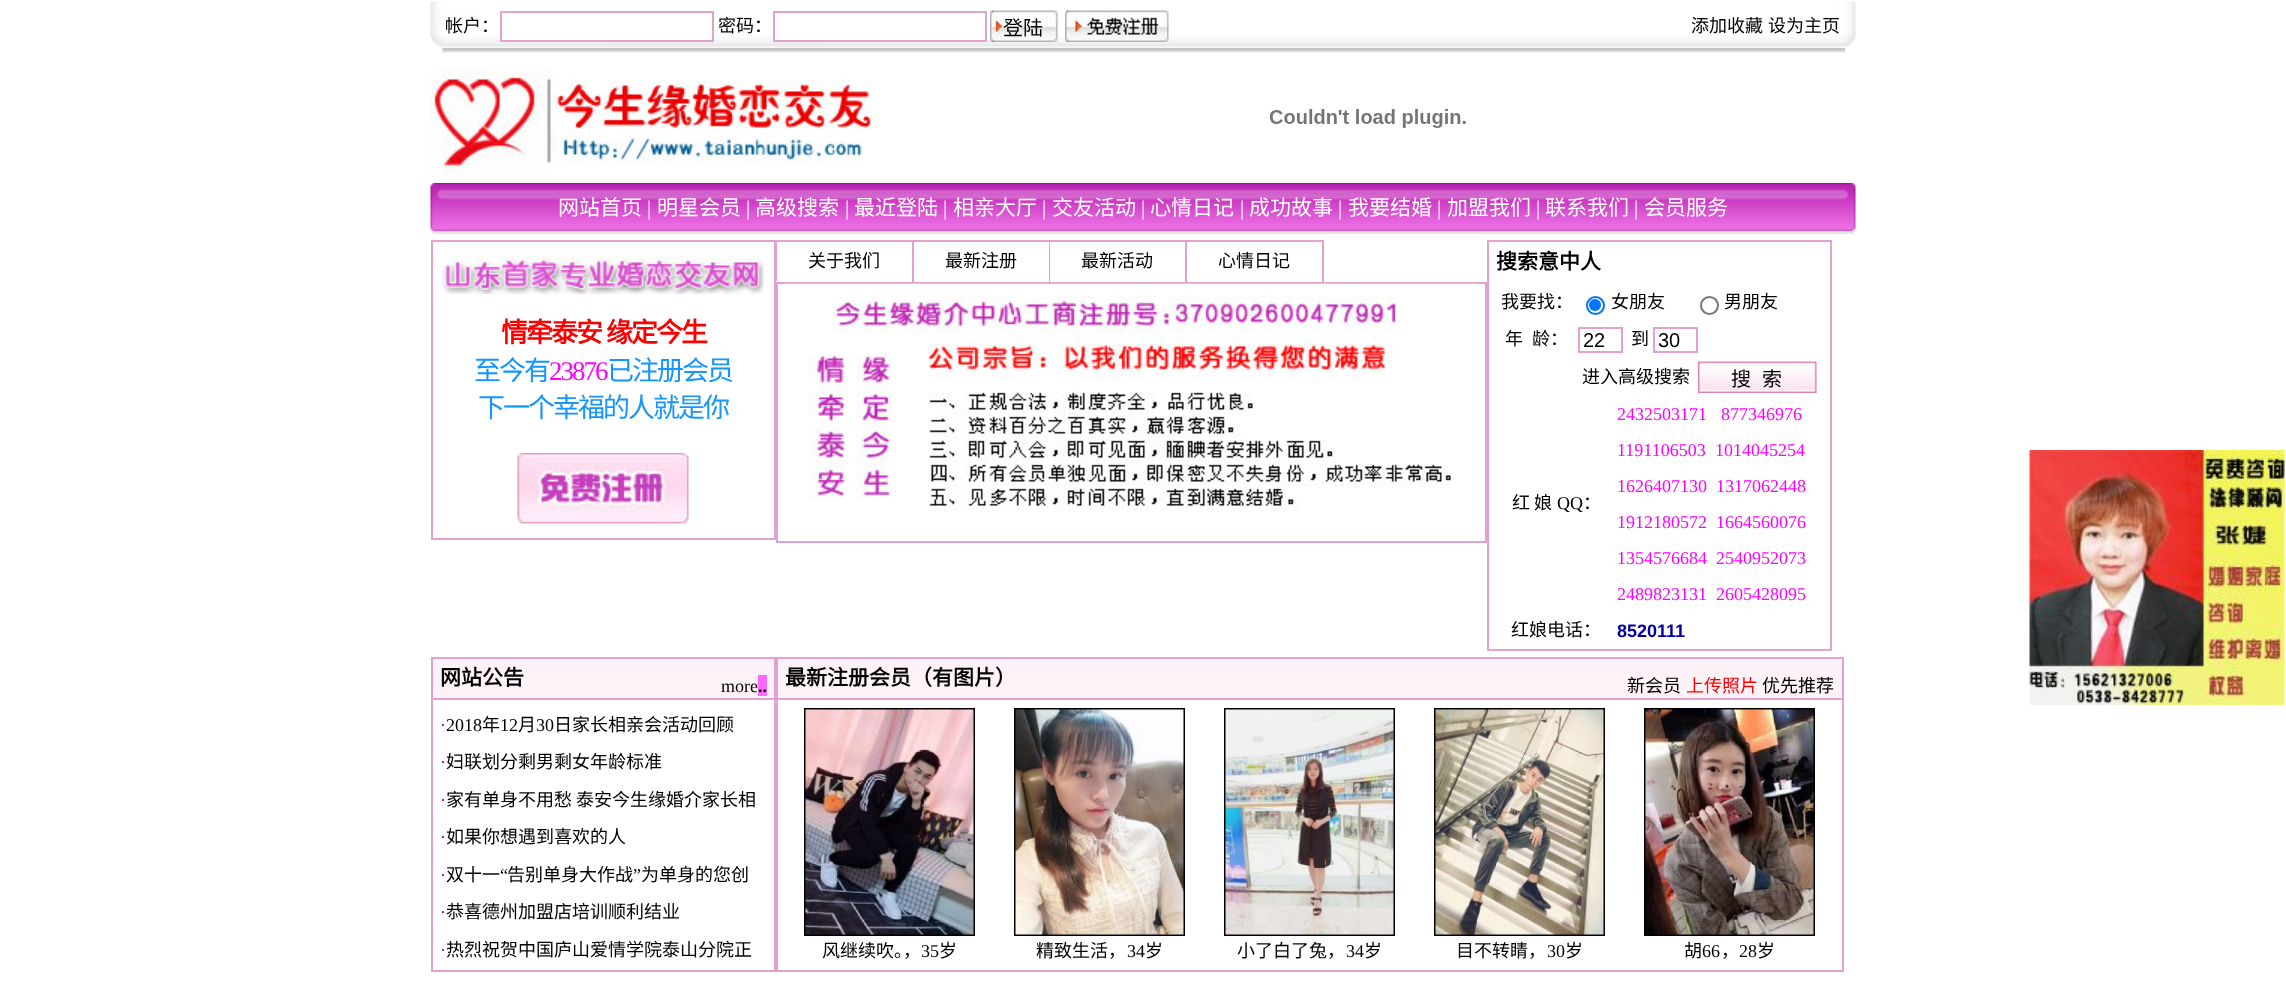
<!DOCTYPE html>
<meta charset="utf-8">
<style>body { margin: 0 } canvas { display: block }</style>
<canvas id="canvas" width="2286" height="982"></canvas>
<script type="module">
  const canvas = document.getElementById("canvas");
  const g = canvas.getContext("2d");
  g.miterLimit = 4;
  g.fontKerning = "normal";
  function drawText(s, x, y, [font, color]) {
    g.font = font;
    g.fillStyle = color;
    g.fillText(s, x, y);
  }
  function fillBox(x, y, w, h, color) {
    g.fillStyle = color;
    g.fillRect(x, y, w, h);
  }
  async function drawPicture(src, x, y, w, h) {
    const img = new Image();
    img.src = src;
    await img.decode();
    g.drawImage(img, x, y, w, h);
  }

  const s1 = ["18px Noto Sans CJK SC", "#000000"];
  const s2 = ["20px Noto Sans CJK SC", "#000000"];
  const s3 = ["21px Noto Sans CJK SC", "#FFFFFF"];
  const s4 = ["21px Liberation Serif", "#FFFFFF"];
  const s5 = ["bold 27px Noto Sans CJK SC", "#FB0000"];
  const s6 = ["27px Noto Sans CJK SC", "#1595FE"];
  const s7 = ["27px Liberation Serif", "#FF00FF"];
  const s8 = ["bold 21px Noto Sans CJK SC", "#000000"];
  const s9 = ["20px Liberation Sans", "#000000"];
  const s10 = ["18px Liberation Serif", "#000000"];
  const s11 = ["18px Liberation Serif", "#FF00FF"];
  const s12 = ["bold 18px Liberation Sans", "#0000A0"];
  const s13 = ["bold 18px Liberation Serif", "#000000"];
  const s14 = ["18px Liberation Serif", "#C20019"];
  const s15 = ["18px Noto Sans CJK SC", "#FB0000"];

  fillBox(0, 0, 2286, 982, "#FFFFFF");
  await drawPicture("pic1.png", 430, 1, 1426, 52);
  drawText("帐户：", 445, 32, s1);
  fillBox(502, 36, 210, 4, "#FFFFFF");
  g.strokeStyle = "#E1A2D1";
  g.lineWidth = 2;
  g.strokeRect(501, 12, 212, 29);
  drawText("密码：", 718, 32, s1);
  fillBox(775, 36, 210, 4, "#FFFFFF");
  g.strokeRect(774, 12, 212, 29);
  fillBox(1057, 11, 1, 31, "#EFEFEF");
  await drawPicture("pic2.png", 990, 10, 68, 32);
  drawText("登陆", 1003, 35, s2);
  await drawPicture("pic3.png", 1065, 10, 104, 32);
  drawText("添加收藏", 1691, 32, s1);
  drawText("设为主页", 1768, 32, s1);
  await drawPicture("pic4.png", 430, 69, 445, 105);
  await drawPicture("pic5.png", 1269, 109, 197, 19);
  await drawPicture("pic6.png", 430, 183, 1426, 51);
  drawText("网站首页", 558, 215, s3);
  drawText("|", 647, 215, s4);
  drawText("明星会员", 657, 215, s3);
  drawText("|", 746, 215, s4);
  drawText("高级搜索", 755, 215, s3);
  drawText("|", 845, 215, s4);
  drawText("最近登陆", 854, 215, s3);
  drawText("|", 943, 215, s4);
  drawText("相亲大厅", 953, 215, s3);
  drawText("|", 1042, 215, s4);
  drawText("交友活动", 1052, 215, s3);
  drawText("|", 1141, 215, s4);
  drawText("心情日记", 1150, 215, s3);
  drawText("|", 1240, 215, s4);
  drawText("成功故事", 1249, 215, s3);
  drawText("|", 1338, 215, s4);
  drawText("我要结婚", 1348, 215, s3);
  drawText("|", 1437, 215, s4);
  drawText("加盟我们", 1447, 215, s3);
  drawText("|", 1536, 215, s4);
  drawText("联系我们", 1545, 215, s3);
  drawText("|", 1634, 215, s4);
  drawText("会员服务", 1644, 215, s3);
  g.strokeRect(432, 241, 343, 298);
  await drawPicture("pic7.png", 439, 255, 325, 39);
  g.letterSpacing = "-2px";
  g.wordSpacing = "1px";
  drawText("情牵泰安 缘定今生", 501, 342, s5);
  g.wordSpacing = "0px";
  drawText("至今有", 474, 380, s6);
  drawText("23876", 549, 380, s7);
  drawText("已注册会员", 607, 380, s6);
  drawText("下一个幸福的人就是你", 478, 417, s6);
  await drawPicture("pic8.png", 517, 453, 172, 71);
  fillBox(776, 240, 1, 41, "#E1A2D1");
  fillBox(777, 240, 546, 2, "#E1A2D1");
  fillBox(912, 240, 2, 42, "#E1A2D1");
  g.letterSpacing = "0px";
  drawText("关于我们", 808, 267, s1);
  fillBox(1049, 240, 1, 42, "#E1A2D1");
  drawText("最新注册", 945, 267, s1);
  fillBox(1185, 240, 2, 42, "#E1A2D1");
  drawText("最新活动", 1081, 267, s1);
  fillBox(1322, 240, 2, 42, "#E1A2D1");
  drawText("心情日记", 1218, 267, s1);
  g.strokeRect(777, 283, 709, 259);
  await drawPicture("pic9.png", 784, 283, 694, 229);
  g.strokeRect(1488, 241, 343, 409);
  drawText("搜索意中人", 1496, 269, s8);
  drawText("我要找：", 1501, 308, s1);
  g.beginPath();
  g.arc(1595.5, 305.5, 8.5, 0, Math.PI * 2);
  g.strokeStyle = "#0075FF";
  g.stroke();
  g.fillStyle = "#0075FF";
  g.beginPath();
  g.arc(1595, 305, 6, 0, Math.PI * 2);
  g.fill();
  drawText("女朋友", 1611, 308, s1);
  g.beginPath();
  g.arc(1709.5, 305.5, 8.5, 0, Math.PI * 2);
  g.strokeStyle = "#767676";
  g.stroke();
  drawText("男朋友", 1724, 308, s1);
  drawText("年", 1505, 345, s1);
  drawText("龄：", 1532, 345, s1);
  g.strokeStyle = "#E1A2D1";
  g.strokeRect(1579, 328, 43, 24);
  drawText("22", 1583, 347, s9);
  drawText("到", 1631, 345, s1);
  g.strokeRect(1654, 328, 43, 24);
  drawText("30", 1658, 347, s9);
  drawText("进入高级搜索", 1582, 383, s1);
  fillBox(1816, 362, 1, 31, "#EFEFEF");
  await drawPicture("pic10.png", 1698, 361, 119, 32);
  g.wordSpacing = "1px";
  drawText("搜  索", 1731, 386, s2);
  g.wordSpacing = "0px";
  drawText("红 娘", 1512, 509, s1);
  drawText("QQ", 1557, 509, s10);
  drawText("：", 1583, 509, s1);
  drawText("2432503171", 1617, 420, s11);
  drawText("877346976", 1721, 420, s11);
  drawText("1191106503", 1617, 456, s11);
  drawText("1014045254", 1715, 456, s11);
  drawText("1626407130", 1617, 492, s11);
  drawText("1317062448", 1716, 492, s11);
  drawText("1912180572", 1617, 528, s11);
  drawText("1664560076", 1716, 528, s11);
  drawText("1354576684", 1617, 564, s11);
  drawText("2540952073", 1716, 564, s11);
  drawText("2489823131", 1617, 600, s11);
  drawText("2605428095", 1716, 600, s11);
  drawText("红娘电话：", 1511, 636, s1);
  drawText("8520111", 1617, 637, s12);
  await drawPicture("pic11.png", 2029, 450, 256, 255);
  fillBox(433, 659, 341, 39, "#FDF2F8");
  fillBox(431, 657, 1413, 2, "#E1A2D1");
  fillBox(774, 657, 4, 41, "#E1A2D1");
  fillBox(431, 657, 2, 41, "#E1A2D1");
  drawText("网站公告", 440, 685, s8);
  drawText("more", 721, 692, s10);
  fillBox(758, 675, 9, 21, "#FF66FF");
  drawText("..", 758, 692, s13);
  g.strokeRect(432, 699, 343, 272);
  drawText("·", 440, 731, s14);
  drawText("2018", 446, 731, s10);
  drawText("年", 482, 731, s1);
  drawText("12", 500, 731, s10);
  drawText("月", 518, 731, s1);
  drawText("30", 536, 731, s10);
  drawText("日家长相亲会活动回顾", 554, 731, s1);
  drawText("·", 440, 768, s14);
  drawText("妇联划分剩男剩女年龄标准", 446, 768, s1);
  drawText("·", 440, 806, s14);
  drawText("家有单身不用愁 泰安今生缘婚介家长相", 446, 806, s1);
  drawText("·", 440, 843, s14);
  drawText("如果你想遇到喜欢的人", 446, 843, s1);
  drawText("双十一", 446, 881, s1);
  drawText("“", 500, 881, s10);
  drawText("告别单身大作战", 507, 881, s1);
  drawText("”", 633, 881, s10);
  drawText("为单身的您创", 641, 881, s1);
  drawText("·", 440, 881, s14);
  drawText("·", 440, 918, s14);
  drawText("恭喜德州加盟店培训顺利结业", 446, 918, s1);
  drawText("·", 440, 956, s14);
  drawText("热烈祝贺中国庐山爱情学院泰山分院正", 446, 956, s1);
  fillBox(778, 659, 1064, 39, "#FDF2F8");
  fillBox(1842, 657, 2, 41, "#E1A2D1");
  drawText("最新注册会员（有图片）", 785, 685, s8);
  drawText("新会员", 1627, 692, s1);
  drawText("上传照片", 1686, 692, s15);
  drawText("优先推荐", 1762, 692, s1);
  g.strokeRect(777, 699, 1066, 272);
  g.strokeStyle = "#000000";
  g.strokeRect(805, 709, 169, 226);
  await drawPicture("pic12.png", 805, 709, 169, 226);
  drawText("风继续吹。", 822, 957, s1);
  drawText("，", 903, 957, s1);
  drawText("35", 921, 957, s10);
  drawText("岁", 939, 957, s1);
  g.strokeRect(1015, 709, 169, 226);
  await drawPicture("pic13.png", 1015, 709, 169, 226);
  drawText("精致生活，", 1036, 957, s1);
  drawText("34", 1127, 957, s10);
  drawText("岁", 1145, 957, s1);
  g.strokeRect(1225, 709, 169, 226);
  await drawPicture("pic14.png", 1225, 709, 169, 226);
  drawText("小了白了兔，", 1237, 957, s1);
  drawText("34", 1346, 957, s10);
  drawText("岁", 1364, 957, s1);
  g.strokeRect(1435, 709, 169, 226);
  await drawPicture("pic15.png", 1435, 709, 169, 226);
  drawText("目不转睛，", 1456, 957, s1);
  drawText("30", 1547, 957, s10);
  drawText("岁", 1565, 957, s1);
  g.strokeRect(1645, 709, 169, 226);
  await drawPicture("pic16.png", 1645, 709, 169, 226);
  drawText("胡", 1684, 957, s1);
  drawText("66", 1702, 957, s10);
  drawText("，", 1721, 957, s1);
  drawText("28", 1739, 957, s10);
  drawText("岁", 1757, 957, s1);
</script>
